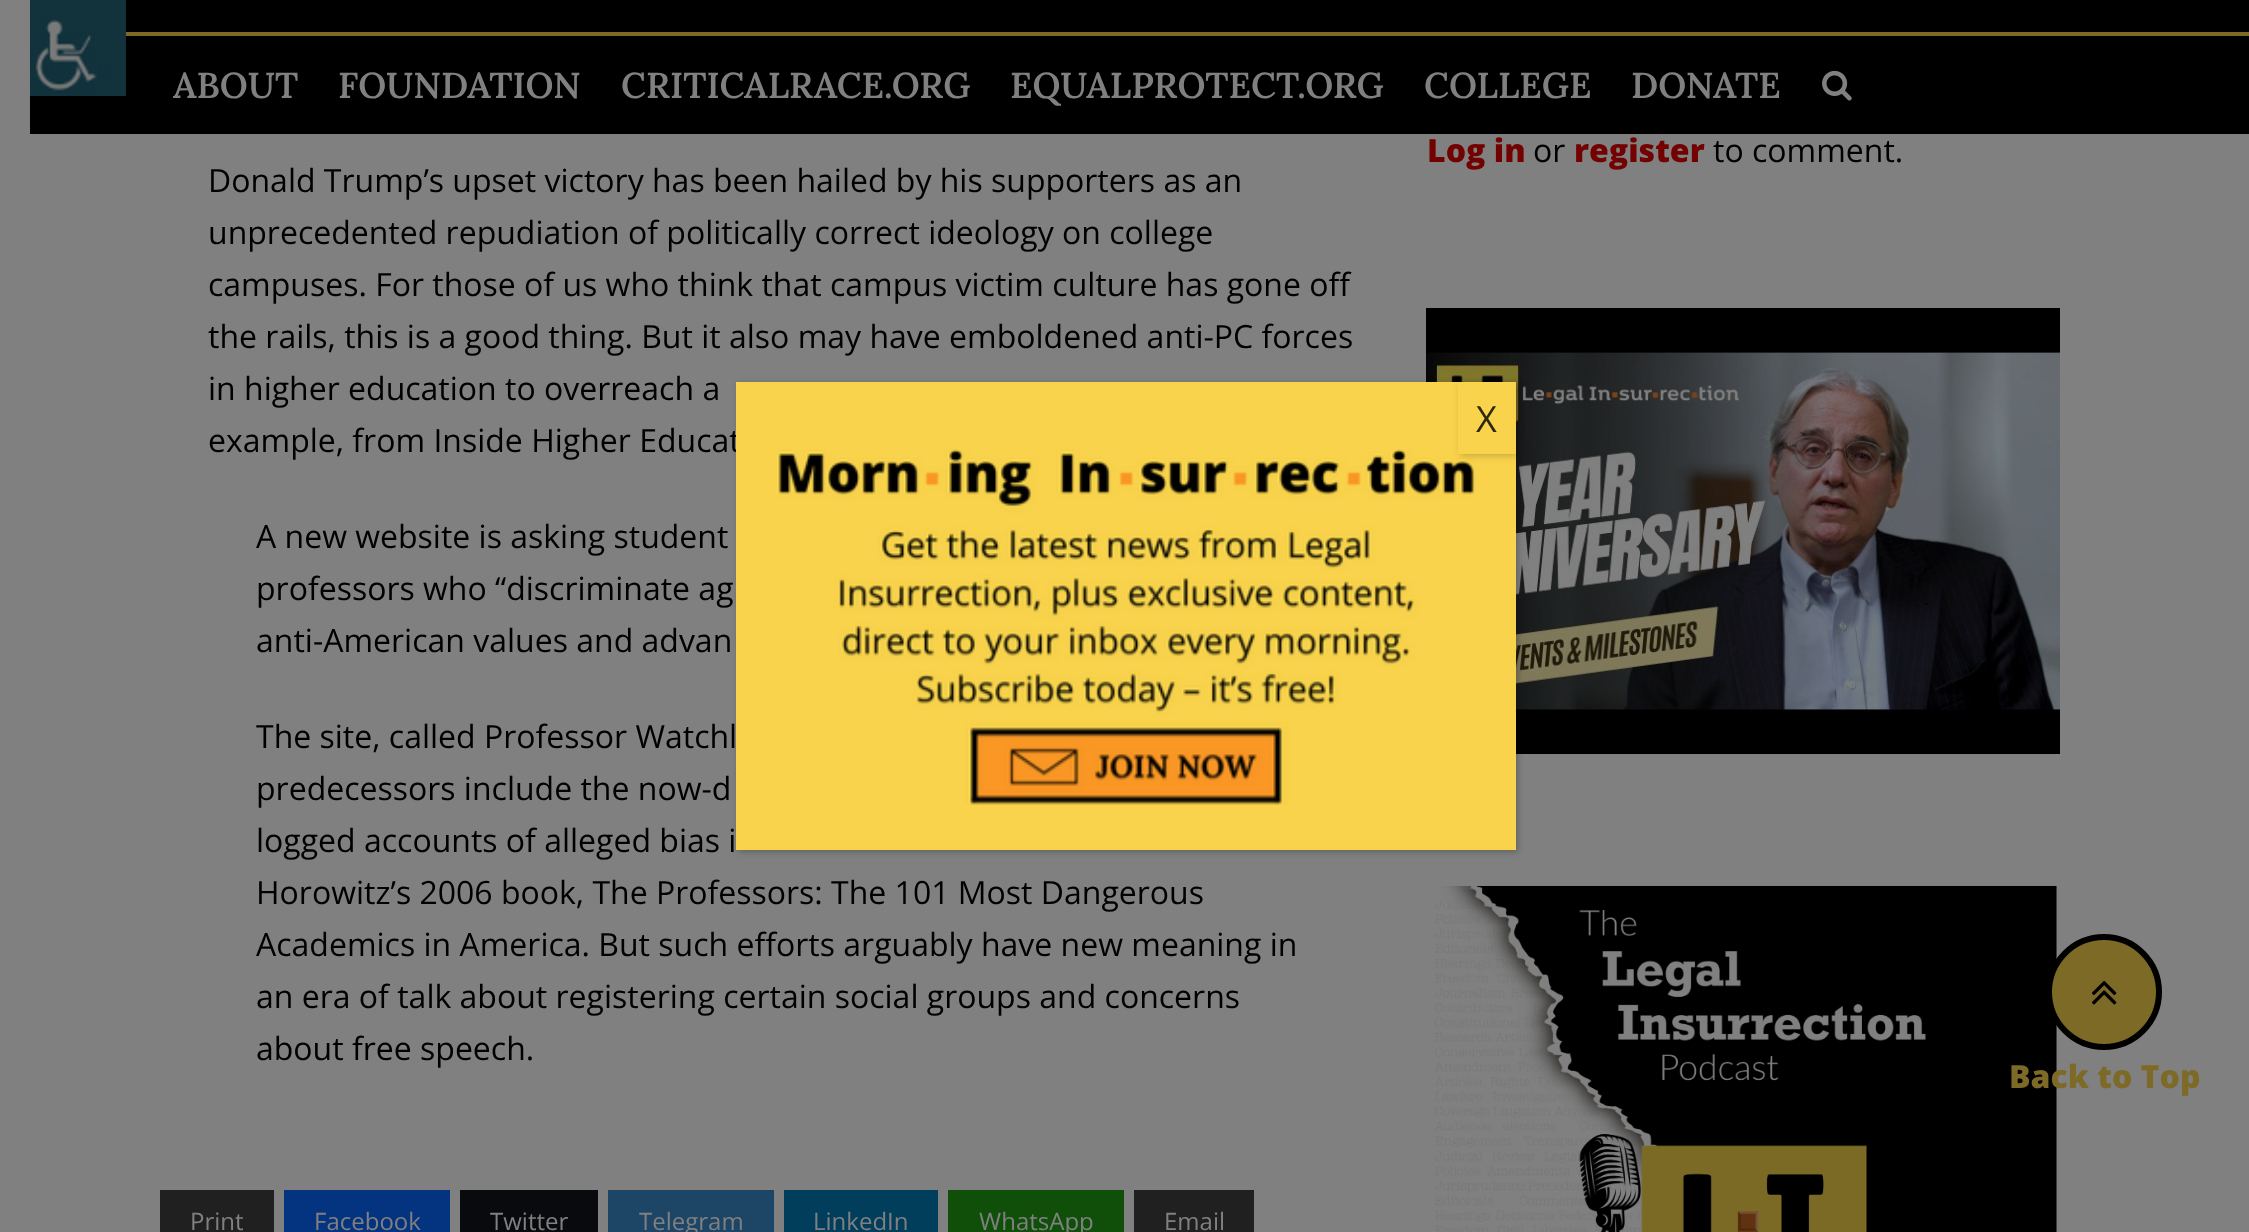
<!DOCTYPE html>
<meta charset="utf-8">
<style>body { margin: 0 } canvas { display: block }</style>
<canvas id="canvas" width="2249" height="1232"></canvas>
<script type="module">
  const canvas = document.getElementById("canvas");
  const g = canvas.getContext("2d");
  g.miterLimit = 4;
  g.fontKerning = "normal";
  function drawText(s, x, y, [font, color]) {
    g.font = font;
    g.fillStyle = color;
    g.fillText(s, x, y);
  }
  function fillBox(x, y, w, h, color) {
    g.fillStyle = color;
    g.fillRect(x, y, w, h);
  }
  async function drawPicture(src, x, y, w, h) {
    const img = new Image();
    img.src = src;
    await img.decode();
    g.drawImage(img, x, y, w, h);
  }

  const s1 = ["600 36px Lora", "#808080"];
  const s2 = ["800 32px Open Sans", "#720100"];
  const s3 = ["32px Open Sans", "#000000"];
  const s4 = ["24px Open Sans", "#808080"];
  const s5 = ["800 32px Open Sans", "#7D6A26"];
  const s6 = ["36px Open Sans", "#30290F"];

  fillBox(0, 0, 2249, 1232, "#808080");
  fillBox(30, 0, 2219, 134, "#000000");
  await drawPicture("pic1.png", 30, 0, 96, 96);
  fillBox(126, 32, 2123, 4, "#7D6A26");
  drawText("ABOUT", 173, 98, s1);
  drawText("FOUNDATION", 338, 98, s1);
  drawText("CRITICALRACE.ORG", 621, 98, s1);
  drawText("EQUALPROTECT.ORG", 1010, 98, s1);
  drawText("COLLEGE", 1424, 98, s1);
  drawText("DONATE", 1631, 98, s1);
  await drawPicture("pic2.png", 1822, 70, 30, 31);
  drawText("Log in", 1427, 162, s2);
  drawText("or", 1533, 162, s3);
  drawText("register", 1574, 162, s2);
  drawText("to comment.", 1713, 162, s3);
  await drawPicture("pic3.png", 1426, 308, 634, 446);
  await drawPicture("pic4.png", 1434, 886, 623, 346);
  drawText("Donald Trump’s upset victory has been hailed by his supporters as an", 208, 192, s3);
  drawText("unprecedented repudiation of politically correct ideology on college", 208, 244, s3);
  drawText("campuses. For those of us who think that campus victim culture has gone off", 208, 296, s3);
  drawText("the rails, this is a good thing. But it also may have emboldened anti-PC forces", 208, 348, s3);
  drawText("in higher education to overreach a", 208, 400, s3);
  drawText("example, from Inside Higher Educat", 208, 452, s3);
  drawText("A new website is asking student", 256, 548, s3);
  drawText("professors who “discriminate ag", 256, 600, s3);
  drawText("anti-American values and advan", 256, 652, s3);
  drawText("The site, called Professor Watchl", 256, 748, s3);
  drawText("predecessors include the now-d", 256, 800, s3);
  drawText("logged accounts of alleged bias i", 256, 852, s3);
  drawText("Horowitz’s 2006 book, The Professors: The 101 Most Dangerous", 256, 904, s3);
  drawText("Academics in America. But such efforts arguably have new meaning in", 256, 956, s3);
  drawText("an era of talk about registering certain social groups and concerns", 256, 1008, s3);
  drawText("about free speech.", 256, 1060, s3);
  fillBox(160, 1190, 114, 42, "#202020");
  drawText("Print", 190, 1230, s4);
  fillBox(284, 1190, 166, 42, "#043380");
  drawText("Facebook", 314, 1230, s4);
  fillBox(460, 1190, 138, 42, "#080A0D");
  drawText("Twitter", 490, 1230, s4);
  fillBox(608, 1190, 166, 42, "#1C4566");
  drawText("Telegram", 639, 1230, s4);
  fillBox(784, 1190, 154, 42, "#003E5B");
  drawText("LinkedIn", 813, 1230, s4);
  fillBox(948, 1190, 176, 42, "#0F4F09");
  drawText("WhatsApp", 979, 1230, s4);
  fillBox(1134, 1190, 120, 42, "#202020");
  drawText("Email", 1164, 1230, s4);
  g.fillStyle = "#7D6A26";
  g.beginPath();
  g.arc(2104, 992, 55, 0, Math.PI * 2);
  g.fill();
  g.strokeStyle = "#000000";
  g.lineWidth = 6;
  g.stroke();
  await drawPicture("pic5.png", 2091, 980, 26, 25);
  drawText("Back to Top", 2009, 1088, s5);
  g.fillStyle = "rgba(2, 2, 2, 0.23)";
  g.filter = "blur(3px)";
  g.beginPath();
  g.rect(738, 384, 780, 468);
  g.fill();
  g.filter = "none";
  fillBox(736, 382, 780, 468, "#F9D34C");
  await drawPicture("pic6.png", 777, 449, 699, 356);
  g.save();
  g.beginPath();
  g.moveTo(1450, 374);
  g.lineTo(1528, 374);
  g.lineTo(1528, 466);
  g.lineTo(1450, 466);
  g.closePath();
  g.moveTo(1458, 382);
  g.lineTo(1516, 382);
  g.lineTo(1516, 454);
  g.lineTo(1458, 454);
  g.closePath();
  g.clip("evenodd");
  g.fillStyle = "rgba(2, 2, 2, 0.19)";
  g.filter = "blur(3px)";
  g.beginPath();
  g.rect(1460, 384, 58, 72);
  g.fill();
  g.filter = "none";
  g.restore();
  drawText("X", 1476, 432, s6);
</script>
